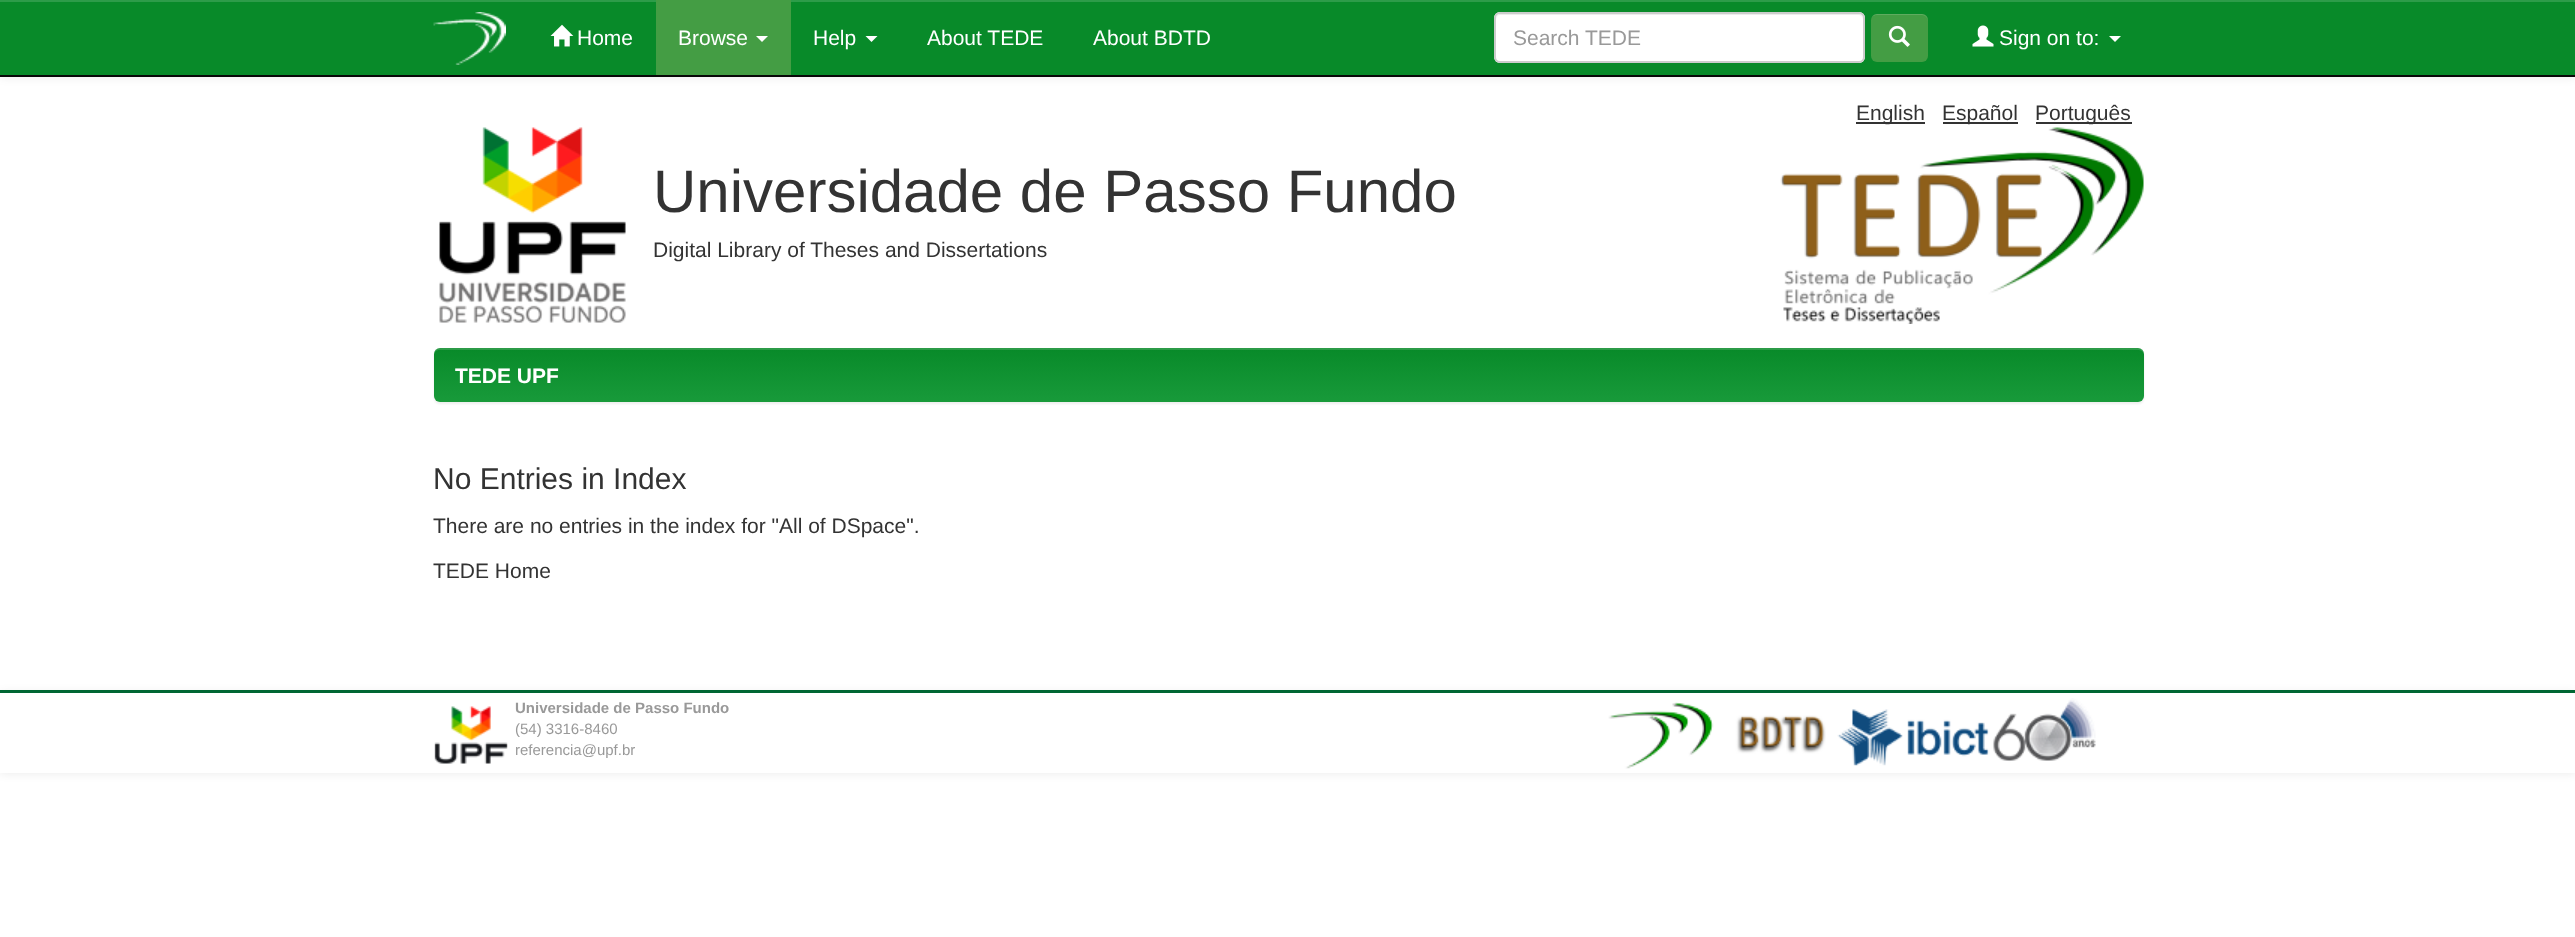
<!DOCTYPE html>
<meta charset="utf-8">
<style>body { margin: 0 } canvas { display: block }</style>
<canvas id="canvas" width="2575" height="937"></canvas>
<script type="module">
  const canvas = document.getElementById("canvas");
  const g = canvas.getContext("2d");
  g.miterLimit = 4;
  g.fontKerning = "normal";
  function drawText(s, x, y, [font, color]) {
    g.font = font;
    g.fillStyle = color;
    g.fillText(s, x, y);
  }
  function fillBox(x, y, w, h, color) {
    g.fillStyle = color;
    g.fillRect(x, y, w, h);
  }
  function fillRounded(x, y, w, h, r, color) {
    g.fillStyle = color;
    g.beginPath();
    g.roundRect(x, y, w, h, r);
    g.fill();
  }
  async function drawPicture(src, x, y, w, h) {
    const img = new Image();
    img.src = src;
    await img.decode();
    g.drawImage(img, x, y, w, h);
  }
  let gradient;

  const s1 = ["21px Liberation Sans", "#FFFFFF"];
  const s2 = ["21px Liberation Sans", "#999999"];
  const s3 = ["21px Liberation Sans", "#333333"];
  const s4 = ["60px Liberation Sans", "#333333"];
  const s5 = ["bold 21px Liberation Sans", "#FFFFFF"];
  const s6 = ["30px Liberation Sans", "#333333"];
  const s7 = ["bold 15px Liberation Sans", "#999999"];
  const s8 = ["15px Liberation Sans", "#999999"];

  fillBox(0, 0, 2575, 937, "#FFFFFF");
  g.fillStyle = "rgba(0, 0, 0, 0.07)";
  g.filter = "blur(4px)";
  g.beginPath();
  g.rect(0, 2, 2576, 76);
  g.fill();
  g.filter = "none";
  fillBox(0, 2, 2575, 73, "#088A29");
  fillBox(0, 0, 2575, 2, "#2D9C49");
  fillBox(0, 75, 2575, 2, "#080808");
  await drawPicture("pic1.png", 433, 12, 73, 53);
  await drawPicture("pic2.png", 550, 24, 24, 23);
  drawText("Home", 577, 45, s1);
  fillBox(656, 0, 135, 75, "#449D44");
  drawText("Browse", 678, 45, s1);
  g.beginPath();
  g.moveTo(756, 36);
  g.lineTo(768, 36);
  g.lineTo(762, 42);
  g.closePath();
  g.fill();
  drawText("Help", 813, 45, s1);
  g.beginPath();
  g.moveTo(865.5, 36);
  g.lineTo(877.5, 36);
  g.lineTo(871.5, 42);
  g.closePath();
  g.fill();
  drawText("About TEDE", 927, 45, s1);
  drawText("About BDTD", 1093, 45, s1);
  fillRounded(1494, 12, 371, 51, 6, "#FFFFFF");
  g.fillStyle = "#ECECEC";
  g.beginPath();
  g.moveTo(1500, 15);
  g.lineTo(1858, 15);
  g.bezierCurveTo(1861, 15, 1863, 17, 1863, 20);
  g.lineTo(1863, 19);
  g.bezierCurveTo(1863, 16, 1861, 14, 1858, 14);
  g.lineTo(1501, 14);
  g.bezierCurveTo(1498, 14, 1496, 16, 1496, 19);
  g.lineTo(1496, 20);
  g.bezierCurveTo(1496, 17, 1498, 15, 1500, 15);
  g.closePath();
  g.fill();
  g.beginPath();
  g.roundRect(1495, 13, 369, 49, 5);
  g.strokeStyle = "#CCCCCC";
  g.lineWidth = 2;
  g.stroke();
  drawText("Search TEDE", 1513, 45, s2);
  fillRounded(1871, 14, 57, 48, 6, "#449D44");
  g.fillStyle = "rgba(255, 255, 255, 0.15)";
  g.beginPath();
  g.moveTo(1876, 15);
  g.lineTo(1922, 15);
  g.bezierCurveTo(1925, 15, 1928, 18, 1928, 21);
  g.lineTo(1928, 20);
  g.bezierCurveTo(1928, 17, 1925, 14, 1922, 14);
  g.lineTo(1877, 14);
  g.bezierCurveTo(1875, 14, 1873, 15, 1872, 17);
  g.bezierCurveTo(1873, 16, 1875, 15, 1876, 15);
  g.closePath();
  g.fill();
  await drawPicture("pic3.png", 1888, 25, 22, 22);
  await drawPicture("pic4.png", 1972, 25, 22, 22);
  drawText("Sign on to:", 1999, 45, s1);
  g.beginPath();
  g.moveTo(2109, 36);
  g.lineTo(2121, 36);
  g.lineTo(2115, 42);
  g.closePath();
  g.fill();
  fillBox(1856, 122, 69, 2, "#333333");
  drawText("English", 1856, 120, s3);
  fillBox(1943, 122, 75, 2, "#333333");
  drawText("Español", 1942, 120, s3);
  fillBox(2036, 122, 96, 2, "#333333");
  drawText("Português", 2035, 120, s3);
  await drawPicture("pic5.png", 439, 127, 187, 196);
  drawText("Universidade de Passo Fundo", 653, 212, s4);
  drawText("Digital Library of Theses and Dissertations", 653, 257, s3);
  await drawPicture("pic6.png", 1780, 127, 364, 197);
  g.fillStyle = "rgba(0, 0, 0, 0.07)";
  g.filter = "blur(1px)";
  g.beginPath();
  g.roundRect(434, 350, 1710, 54, 6);
  g.fill();
  g.filter = "none";
  gradient = g.createLinearGradient(1289, 348, 1289, 402);
  gradient.addColorStop(0, "#088A29");
  gradient.addColorStop(1, "#189A3A");
  g.fillStyle = gradient;
  g.beginPath();
  g.roundRect(434, 348, 1710, 54, 6);
  g.fill();
  g.fillStyle = "rgba(255, 255, 255, 0.15)";
  g.beginPath();
  g.moveTo(440, 350);
  g.lineTo(2138, 350);
  g.bezierCurveTo(2141, 350, 2144, 352, 2144, 356);
  g.bezierCurveTo(2144, 352, 2143, 348, 2138, 348);
  g.lineTo(440, 348);
  g.bezierCurveTo(435, 348, 434, 352, 434, 356);
  g.bezierCurveTo(434, 352, 436, 350, 440, 350);
  g.closePath();
  g.fill();
  drawText("TEDE UPF", 455, 383, s5);
  drawText("No Entries in Index", 433, 489, s6);
  drawText("There are no entries in the index for \"All of DSpace\".", 433, 533, s3);
  drawText("TEDE Home", 433, 578, s3);
  g.fillStyle = "rgba(0, 0, 0, 0.07)";
  g.filter = "blur(4px)";
  g.beginPath();
  g.rect(0, 692, 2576, 82);
  g.fill();
  g.filter = "none";
  fillBox(0, 693, 2575, 80, "#FFFFFF");
  fillBox(0, 690, 2575, 3, "#006633");
  await drawPicture("pic7.png", 434, 706, 74, 58);
  drawText("Universidade de Passo Fundo", 515, 713, s7);
  drawText("(54) 3316-8460", 515, 734, s8);
  drawText("referencia@upf.br", 515, 755, s8);
  await drawPicture("pic8.png", 1608, 702, 218, 67);
  await drawPicture("pic9.png", 1837, 698, 259, 68);
</script>
